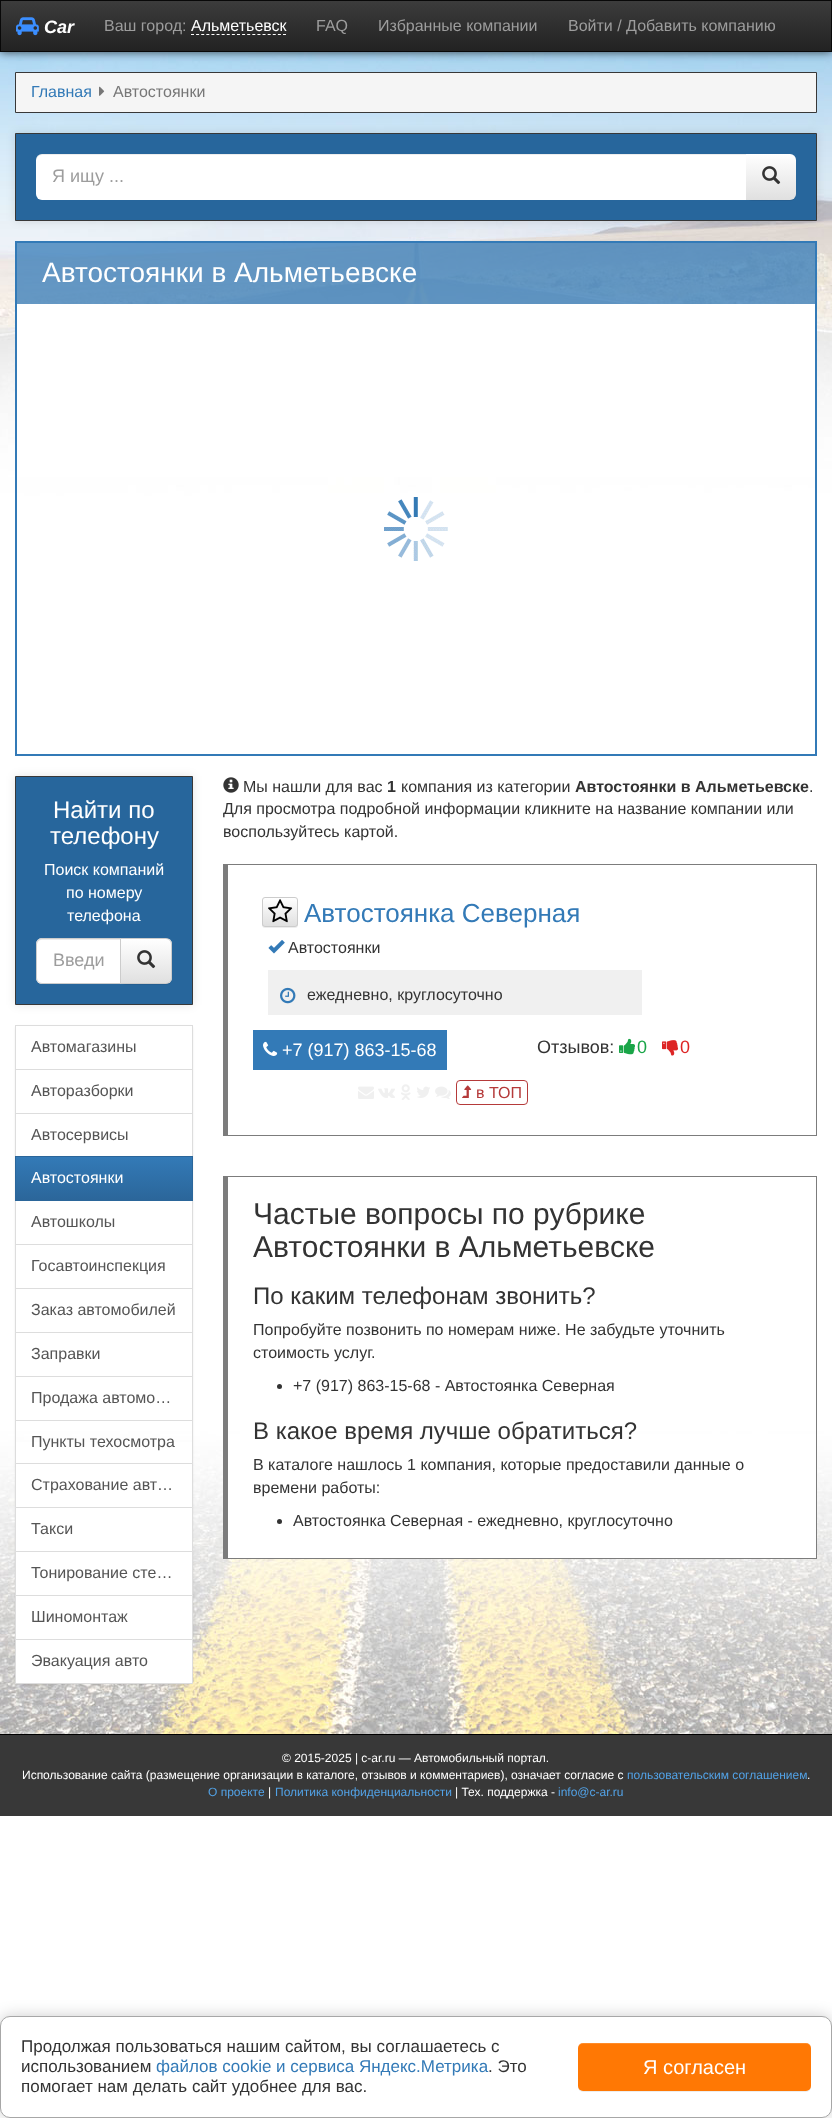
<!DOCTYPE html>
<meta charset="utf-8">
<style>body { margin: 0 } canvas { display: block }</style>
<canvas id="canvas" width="832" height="2118"></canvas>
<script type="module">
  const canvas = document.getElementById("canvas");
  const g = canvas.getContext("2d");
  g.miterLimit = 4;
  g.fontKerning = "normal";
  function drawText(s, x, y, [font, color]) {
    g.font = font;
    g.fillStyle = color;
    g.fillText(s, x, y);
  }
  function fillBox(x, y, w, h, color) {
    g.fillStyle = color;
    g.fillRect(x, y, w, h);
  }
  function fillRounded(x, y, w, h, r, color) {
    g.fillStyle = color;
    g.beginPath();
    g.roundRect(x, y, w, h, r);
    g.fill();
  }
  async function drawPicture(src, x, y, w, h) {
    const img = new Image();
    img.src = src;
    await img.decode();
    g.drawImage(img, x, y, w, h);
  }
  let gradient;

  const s1 = ["italic bold 18px Liberation Sans", "#FFFFFF"];
  const s2 = ["16px Liberation Sans", "#9D9D9D"];
  const s3 = ["16px Liberation Sans", "#FFFFFF"];
  const s4 = ["16px Liberation Sans", "#337AB7"];
  const s5 = ["16px Liberation Sans", "#777777"];
  const s6 = ["18px Liberation Sans", "#9D9D9D"];
  const s7 = ["28px Liberation Sans", "#FFFFFF"];
  const s8 = ["24px Liberation Sans", "#FFFFFF"];
  const s9 = ["16px Liberation Sans", "#555555"];
  const s10 = ["16px Liberation Sans", "#333333"];
  const s11 = ["bold 16px Liberation Sans", "#333333"];
  const s12 = ["26px Liberation Sans", "#337AB7"];
  const s13 = ["18px Liberation Sans", "#FFFFFF"];
  const s14 = ["18px Liberation Sans", "#333333"];
  const s15 = ["18px Liberation Sans", "#19A547"];
  const s16 = ["18px Liberation Sans", "#DD2525"];
  const s17 = ["16px Liberation Sans", "#B53A3A"];
  const s18 = ["30px Liberation Sans", "#333333"];
  const s19 = ["24px Liberation Sans", "#333333"];
  const s20 = ["12px Liberation Sans", "#FFFFFF"];
  const s21 = ["12px Liberation Sans", "#52A2E6"];
  const s22 = ["17px Liberation Sans", "#333333"];
  const s23 = ["17px Liberation Sans", "#337AB7"];
  const s24 = ["20px Liberation Sans", "#FFFFFF"];

  fillBox(0, 0, 832, 2118, "#FFFFFF");
  await drawPicture("pic1.png", 0, 52, 832, 1682);
  g.fillStyle = "rgba(0, 0, 0, 0.7)";
  g.filter = "blur(5px)";
  g.beginPath();
  g.rect(0, 0, 832, 52);
  g.fill();
  g.filter = "none";
  gradient = g.createLinearGradient(416, 1, 416, 51);
  gradient.addColorStop(0, "#3C3C3C");
  gradient.addColorStop(1, "#222222");
  g.fillStyle = gradient;
  g.fillRect(1, 1, 830, 50);
  g.strokeStyle = "#080808";
  g.strokeRect(0.5, 0.5, 831, 51);
  await drawPicture("pic2.png", 16, 17, 23, 19);
  drawText("Car", 44, 33, s1);
  drawText("Ваш город:", 104, 31, s2);
  drawText("Альметьевск", 191, 31, s3);
  g.beginPath();
  g.moveTo(191, 34.5);
  g.lineTo(286, 34.5);
  g.strokeStyle = "#FFFFFF";
  g.setLineDash([3, 2.11]);
  g.stroke();
  drawText("FAQ", 316, 31, s2);
  drawText("Избранные компании", 378, 31, s2);
  drawText("Войти / Добавить компанию", 568, 31, s2);
  g.fillStyle = "#F5F5F5";
  g.beginPath();
  g.rect(15.5, 72.5, 801, 40);
  g.fill();
  g.strokeStyle = "#383838";
  g.setLineDash([]);
  g.stroke();
  drawText("Главная", 31, 97, s4);
  await drawPicture("pic3.png", 99, 86, 6, 10);
  drawText("Автостоянки", 113, 97, s5);
  g.fillStyle = "rgba(0, 0, 0, 0.1)";
  g.filter = "blur(5px)";
  g.beginPath();
  g.rect(15, 133, 802, 88);
  g.fill();
  g.filter = "none";
  g.fillStyle = "#27669C";
  g.beginPath();
  g.rect(15.5, 133.5, 801, 87);
  g.fill();
  g.stroke();
  g.fillStyle = "#FFFFFF";
  g.beginPath();
  g.roundRect(36, 154, 711, 46, [6, 0, 0, 6]);
  g.fill();
  g.fillStyle = "rgba(0, 0, 0, 0.07)";
  g.beginPath();
  g.moveTo(42, 155);
  g.lineTo(747, 155);
  g.lineTo(747, 154);
  g.lineTo(42, 154);
  g.bezierCurveTo(38, 154, 36, 157, 36, 161);
  g.bezierCurveTo(36, 158, 39, 155, 42, 155);
  g.closePath();
  g.fill();
  drawText("Я ищу ...", 52, 182, s6);
  g.fillStyle = "rgba(0, 0, 0, 0.07)";
  g.filter = "blur(0.5px)";
  g.beginPath();
  g.roundRect(746, 155, 50, 46, 6);
  g.fill();
  g.filter = "none";
  gradient = g.createLinearGradient(771, 154, 771, 200);
  gradient.addColorStop(0, "#FFFFFF");
  gradient.addColorStop(1, "#E0E0E0");
  g.fillStyle = gradient;
  g.beginPath();
  g.roundRect(746, 154, 50, 46, [0, 6, 6, 0]);
  g.fill();
  g.fillStyle = "rgba(255, 255, 255, 0.15)";
  g.beginPath();
  g.moveTo(746, 155);
  g.lineTo(790, 155);
  g.bezierCurveTo(793, 155, 796, 158, 796, 161);
  g.lineTo(796, 160);
  g.bezierCurveTo(796, 157, 793, 154, 790, 154);
  g.lineTo(746, 154);
  g.closePath();
  g.fill();
  await drawPicture("pic4.png", 762, 166, 19, 19);
  g.strokeStyle = "#337AB7";
  g.lineWidth = 2;
  g.strokeRect(16, 242, 800, 513);
  fillBox(17, 243, 798, 61, "rgba(51, 122, 183, 0.75)");
  drawText("Автостоянки в Альметьевске", 42, 282, s7);
  fillBox(17, 304, 798, 173, "#FFFFFF");
  await drawPicture("pic5.png", 384, 497, 64, 64);
  g.fillStyle = "rgba(0, 0, 0, 0.1)";
  g.filter = "blur(5px)";
  g.beginPath();
  g.rect(15, 776, 178, 229);
  g.fill();
  g.filter = "none";
  g.fillStyle = "#27669C";
  g.beginPath();
  g.rect(15.5, 776.5, 177, 228);
  g.fill();
  g.strokeStyle = "#383838";
  g.lineWidth = 1;
  g.stroke();
  drawText("Найти по", 53, 818, s8);
  drawText("телефону", 50, 844, s8);
  drawText("Поиск компаний", 44, 875, s3);
  drawText("по номеру", 66, 898, s3);
  drawText("телефона", 67, 921, s3);
  g.beginPath();
  g.roundRect(36, 938, 85, 46, [6, 0, 0, 6]);
  g.fill();
  g.fillStyle = "#ECECEC";
  g.beginPath();
  g.moveTo(42, 940);
  g.lineTo(120, 940);
  g.lineTo(120, 939);
  g.lineTo(42, 939);
  g.bezierCurveTo(39, 939, 37, 941, 37, 944);
  g.lineTo(37, 945);
  g.bezierCurveTo(37, 942, 39, 940, 42, 940);
  g.closePath();
  g.fill();
  g.beginPath();
  g.roundRect(36.5, 938.5, 84, 45, [5.5, 0, 0, 5.5]);
  g.strokeStyle = "#CCCCCC";
  g.stroke();
  drawText("Введи", 53, 966, s6);
  g.fillStyle = "rgba(0, 0, 0, 0.07)";
  g.filter = "blur(0.5px)";
  g.beginPath();
  g.roundRect(120, 939, 52, 46, 6);
  g.fill();
  g.filter = "none";
  g.save();
  g.beginPath();
  g.roundRect(120, 938, 52, 46, [0, 6, 6, 0]);
  g.clip();
  gradient = g.createLinearGradient(146, 939, 146, 983);
  gradient.addColorStop(0, "#FFFFFF");
  gradient.addColorStop(1, "#E0E0E0");
  g.fillStyle = gradient;
  g.fillRect(121, 939, 51, 44);
  g.restore();
  g.beginPath();
  g.roundRect(120.5, 938.5, 51, 45, [0, 5.5, 5.5, 0]);
  g.stroke();
  await drawPicture("pic4.png", 137, 950, 19, 19);
  g.save();
  g.beginPath();
  g.moveTo(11, 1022);
  g.lineTo(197, 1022);
  g.lineTo(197, 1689);
  g.lineTo(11, 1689);
  g.closePath();
  g.moveTo(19, 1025);
  g.lineTo(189, 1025);
  g.bezierCurveTo(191, 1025, 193, 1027, 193, 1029);
  g.lineTo(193, 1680);
  g.bezierCurveTo(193, 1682, 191, 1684, 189, 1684);
  g.lineTo(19, 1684);
  g.bezierCurveTo(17, 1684, 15, 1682, 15, 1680);
  g.lineTo(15, 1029);
  g.bezierCurveTo(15, 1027, 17, 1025, 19, 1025);
  g.closePath();
  g.clip("evenodd");
  g.filter = "blur(1px)";
  g.beginPath();
  g.roundRect(15, 1026, 178, 659, 4);
  g.fill();
  g.filter = "none";
  g.restore();
  g.strokeStyle = "#DDDDDD";
  g.strokeRect(15.5, 1025.5, 177, 44);
  drawText("Автомагазины", 31, 1052, s9);
  g.strokeRect(15.5, 1069.5, 177, 44);
  drawText("Авторазборки", 31, 1096, s9);
  g.strokeRect(15.5, 1113.5, 177, 43);
  drawText("Автосервисы", 31, 1140, s9);
  gradient = g.createLinearGradient(104, 1157, 104, 1200);
  gradient.addColorStop(0, "#337AB7");
  gradient.addColorStop(1, "#2B669A");
  g.fillStyle = gradient;
  g.fillRect(16, 1157, 176, 43);
  g.strokeRect(15.5, 1200.5, 177, 44);
  g.strokeStyle = "#2B669A";
  g.strokeRect(15.5, 1156.5, 177, 44);
  drawText("Автостоянки", 31, 1183, s3);
  drawText("Автошколы", 31, 1227, s9);
  g.strokeStyle = "#DDDDDD";
  g.strokeRect(15.5, 1244.5, 177, 44);
  drawText("Госавтоинспекция", 31, 1271, s9);
  g.strokeRect(15.5, 1288.5, 177, 44);
  drawText("Заказ автомобилей", 31, 1315, s9);
  g.strokeRect(15.5, 1332.5, 177, 44);
  drawText("Заправки", 31, 1359, s9);
  g.strokeRect(15.5, 1376.5, 177, 44);
  drawText("Продажа автомо…", 31, 1403, s9);
  fillBox(16, 1442, 176, 21, "#FFFFFF");
  g.strokeRect(15.5, 1420.5, 177, 43);
  drawText("Пункты техосмотра", 31, 1447, s9);
  g.fillStyle = "#FFFFFF";
  g.beginPath();
  g.rect(15.5, 1463.5, 177, 44);
  g.fill();
  g.stroke();
  drawText("Страхование авт…", 31, 1490, s9);
  g.fillStyle = "#FFFFFF";
  g.beginPath();
  g.rect(15.5, 1507.5, 177, 44);
  g.fill();
  g.stroke();
  drawText("Такси", 31, 1534, s9);
  g.fillStyle = "#FFFFFF";
  g.beginPath();
  g.rect(15.5, 1551.5, 177, 44);
  g.fill();
  g.stroke();
  drawText("Тонирование сте…", 31, 1578, s9);
  g.fillStyle = "#FFFFFF";
  g.beginPath();
  g.rect(15.5, 1595.5, 177, 44);
  g.fill();
  g.stroke();
  drawText("Шиномонтаж", 31, 1622, s9);
  g.fillStyle = "#FFFFFF";
  g.beginPath();
  g.rect(15.5, 1639.5, 177, 44);
  g.fill();
  g.stroke();
  drawText("Эвакуация авто", 31, 1666, s9);
  await drawPicture("pic6.png", 223, 777, 16, 16);
  drawText("Мы нашли для вас", 243, 792, s10);
  drawText("1", 387, 792, s11);
  drawText("компания из категории", 401, 792, s10);
  drawText("Автостоянки в Альметьевске", 575, 792, s11);
  drawText(".", 809, 792, s10);
  drawText("Для просмотра подробной информации кликните на название компании или", 223, 814, s10);
  drawText("воспользуйтесь картой.", 223, 837, s10);
  fillBox(223, 864, 594, 1, "#7C7C7C");
  fillBox(816, 864, 1, 272, "#7C7C7C");
  fillBox(223, 1135, 594, 1, "#7C7C7C");
  fillBox(223, 864, 5, 272, "#7C7C7C");
  g.fillStyle = "rgba(0, 0, 0, 0.07)";
  g.filter = "blur(0.5px)";
  g.beginPath();
  g.roundRect(262, 898, 36, 30, 3);
  g.fill();
  g.filter = "none";
  g.save();
  g.beginPath();
  g.roundRect(262, 897, 36, 30, 3);
  g.clip();
  gradient = g.createLinearGradient(280, 898, 280, 926);
  gradient.addColorStop(0, "#FFFFFF");
  gradient.addColorStop(1, "#E0E0E0");
  g.fillStyle = gradient;
  g.fillRect(262, 898, 36, 28);
  g.restore();
  g.beginPath();
  g.roundRect(262.5, 897.5, 35, 29, 2.5);
  g.strokeStyle = "#CCCCCC";
  g.stroke();
  await drawPicture("pic7.png", 268, 899, 25, 24);
  drawText("Автостоянка Северная", 304, 922, s12);
  await drawPicture("pic8.png", 268, 940, 17, 14);
  drawText("Автостоянки", 288, 953, s10);
  fillBox(268, 970, 374, 45, "#F0F0F0");
  await drawPicture("pic9.png", 280, 987, 16, 17);
  drawText("ежедневно, круглосуточно", 307, 1000, s10);
  fillBox(253, 1030, 194, 40, "#337AB7");
  await drawPicture("pic10.png", 263, 1041, 15, 15);
  drawText("+7 (917) 863-15-68", 282, 1056, s13);
  drawText("Отзывов:", 537, 1053, s14);
  await drawPicture("pic11.png", 619, 1038, 16, 17);
  drawText("0", 637, 1053, s15);
  await drawPicture("pic12.png", 662, 1040, 17, 16);
  drawText("0", 680, 1053, s16);
  await drawPicture("pic13.png", 358, 1086, 16, 13);
  await drawPicture("pic14.png", 378, 1088, 17, 10);
  await drawPicture("pic15.png", 401, 1084, 10, 16);
  await drawPicture("pic16.png", 417, 1086, 13, 12);
  await drawPicture("pic17.png", 435, 1086, 16, 13);
  g.beginPath();
  g.roundRect(456.5, 1080.5, 71, 24, 3.5);
  g.strokeStyle = "#B53A3A";
  g.stroke();
  await drawPicture("pic18.png", 462, 1085, 10, 13);
  drawText("в ТОП", 476, 1098, s17);
  fillBox(228, 1434, 588, 124, "#FFFFFF");
  fillBox(223, 1176, 594, 1, "#7C7C7C");
  fillBox(816, 1176, 1, 383, "#7C7C7C");
  fillBox(223, 1558, 594, 1, "#7C7C7C");
  fillBox(223, 1176, 5, 383, "#7C7C7C");
  drawText("Частые вопросы по рубрике", 253, 1224, s18);
  drawText("Автостоянки в Альметьевске", 253, 1257, s18);
  drawText("По каким телефонам звонить?", 253, 1304, s19);
  drawText("Попробуйте позвонить по номерам ниже. Не забудьте уточнить", 253, 1335, s10);
  drawText("стоимость услуг.", 253, 1358, s10);
  g.beginPath();
  g.arc(279.5, 1386.5, 2.5, 0, Math.PI * 2);
  g.fill();
  drawText("+7 (917) 863-15-68 - Автостоянка Северная", 293, 1391, s10);
  drawText("В какое время лучше обратиться?", 253, 1439, s19);
  drawText("В каталоге нашлось 1 компания, которые предоставили данные о", 253, 1470, s10);
  drawText("времени работы:", 253, 1493, s10);
  g.beginPath();
  g.arc(279.5, 1521.5, 2.5, 0, Math.PI * 2);
  g.fill();
  drawText("Автостоянка Северная - ежедневно, круглосуточно", 293, 1526, s10);
  fillBox(0, 1735, 832, 81, "#383838");
  fillBox(0, 1734, 832, 1, "#000000");
  drawText("© 2015-2025 | c-ar.ru — Автомобильный портал.", 282, 1762, s20);
  drawText("Использование сайта (размещение организации в каталоге, отзывов и комментариев), означает согласие с", 22, 1779, s20);
  drawText("пользовательским соглашением", 627, 1779, s21);
  drawText(".", 807, 1779, s20);
  drawText("О проекте", 208, 1796, s21);
  drawText("|", 268, 1796, s20);
  drawText("Политика конфиденциальности", 275, 1796, s21);
  drawText("| Тех. поддержка -", 455, 1796, s20);
  drawText("info@c-ar.ru", 558, 1796, s21);
  g.fillStyle = "rgba(0, 0, 0, 0.2)";
  g.filter = "blur(7.5px)";
  g.beginPath();
  g.roundRect(0, 2016, 832, 102, 10);
  g.fill();
  g.filter = "none";
  g.fillStyle = "#FFFFFF";
  g.beginPath();
  g.roundRect(0.5, 2016.5, 831, 101, 9.5);
  g.fill();
  g.strokeStyle = "#A7A7A7";
  g.stroke();
  drawText("Продолжая пользоваться нашим сайтом, вы соглашаетесь с", 21, 2052, s22);
  drawText("использованием", 21, 2072, s22);
  drawText("файлов cookie и сервиса Яндекс.Метрика", 156, 2072, s23);
  drawText(". Это", 488, 2072, s22);
  drawText("помогает нам делать сайт удобнее для вас.", 21, 2092, s22);
  g.fillStyle = "rgba(0, 0, 0, 0.07)";
  g.filter = "blur(0.5px)";
  g.beginPath();
  g.roundRect(578, 2044, 233, 48, 5);
  g.fill();
  g.filter = "none";
  fillRounded(578, 2043, 233, 48, 5, "#FF7804");
  g.fillStyle = "rgba(255, 255, 255, 0.15)";
  g.beginPath();
  g.moveTo(583, 2044);
  g.lineTo(806, 2044);
  g.bezierCurveTo(809, 2044, 811, 2046, 811, 2049);
  g.lineTo(811, 2048);
  g.bezierCurveTo(811, 2045, 809, 2043, 806, 2043);
  g.lineTo(583, 2043);
  g.bezierCurveTo(580, 2043, 578, 2045, 578, 2048);
  g.lineTo(578, 2049);
  g.bezierCurveTo(578, 2046, 580, 2044, 583, 2044);
  g.closePath();
  g.fill();
  drawText("Я согласен", 643, 2074, s24);
</script>
